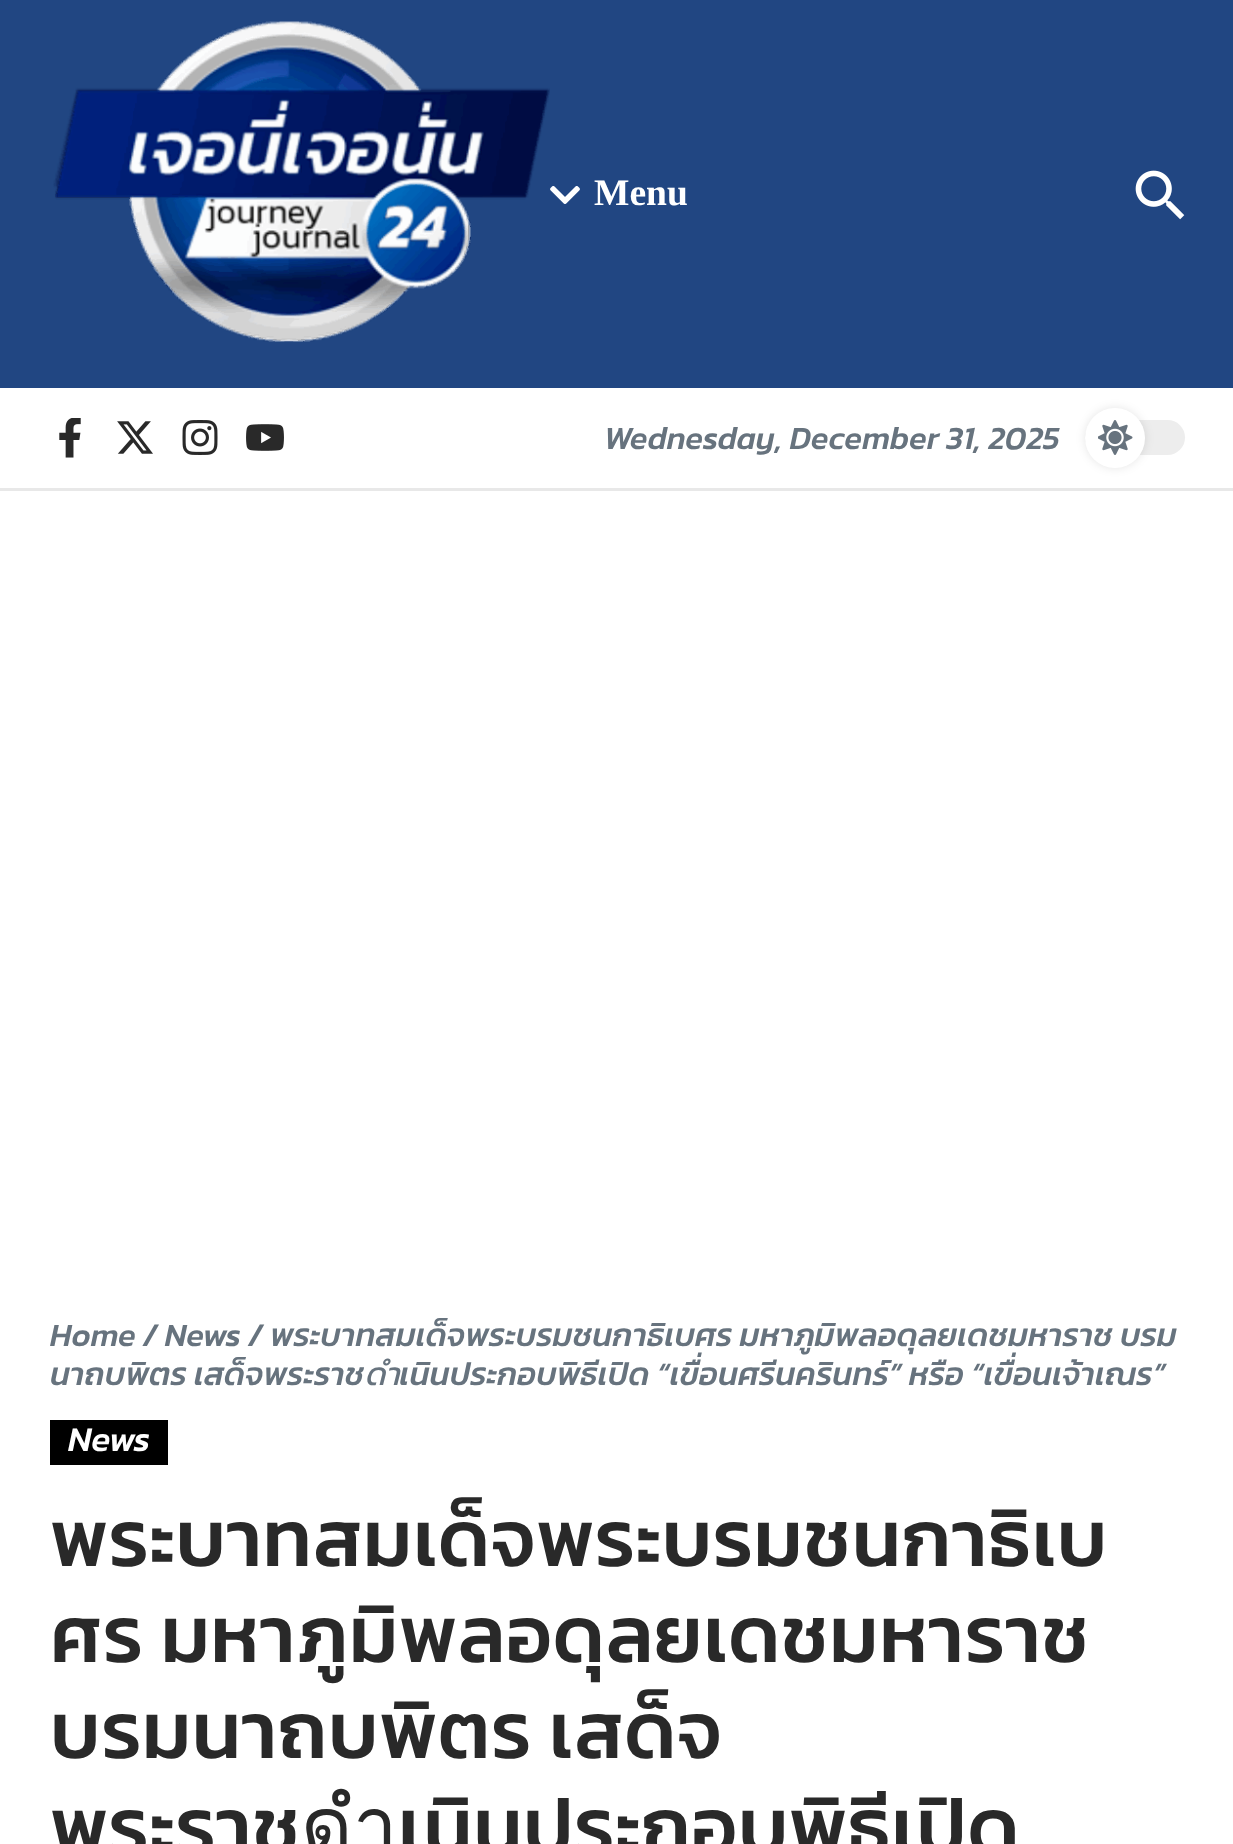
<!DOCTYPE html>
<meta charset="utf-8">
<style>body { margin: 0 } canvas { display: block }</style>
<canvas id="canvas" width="1233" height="1844"></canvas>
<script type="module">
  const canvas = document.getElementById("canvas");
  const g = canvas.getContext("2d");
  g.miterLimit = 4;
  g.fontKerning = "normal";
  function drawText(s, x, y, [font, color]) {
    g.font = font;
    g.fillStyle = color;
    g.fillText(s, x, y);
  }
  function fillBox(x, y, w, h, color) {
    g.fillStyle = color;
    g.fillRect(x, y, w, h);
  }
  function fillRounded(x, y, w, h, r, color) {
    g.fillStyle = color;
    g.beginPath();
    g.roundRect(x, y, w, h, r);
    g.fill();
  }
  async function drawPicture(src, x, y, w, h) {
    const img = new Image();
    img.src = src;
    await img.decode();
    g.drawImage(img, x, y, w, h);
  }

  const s1 = ["bold 37.5px Liberation Serif", "#FFFFFF"];
  const s2 = ["italic 500 32.5px Kanit", "#67737E"];
  const s3 = ["italic 500 35px Kanit", "#FFFFFF"];
  const s4 = ["500 80px Kanit", "#292929"];

  fillBox(0, 0, 1233, 1844, "#FFFFFF");
  fillBox(0, 0, 1233, 388, "#214682");
  await drawPicture("pic1.png", 53, 21, 497, 321);
  await drawPicture("pic2.png", 550, 186, 30, 18);
  drawText("Menu", 594, 205, s1);
  await drawPicture("pic3.png", 1135, 170, 50, 50);
  fillBox(0, 488, 1233, 3, "#E8E8E8");
  await drawPicture("pic4.png", 59, 418, 22, 40);
  await drawPicture("pic5.png", 117, 421, 36, 33);
  await drawPicture("pic6.png", 182, 420, 36, 35);
  await drawPicture("pic7.png", 246, 424, 38, 27);
  drawText("Wednesday, December 31, 2025", 604, 449, s2);
  fillRounded(1085, 420, 100, 35, 17.5, "#EDEDED");
  g.fillStyle = "rgba(0, 0, 0, 0.1)";
  g.filter = "blur(5px)";
  g.beginPath();
  g.roundRect(1085, 408, 60, 60, 30);
  g.fill();
  g.filter = "none";
  g.fillStyle = "#FFFFFF";
  g.beginPath();
  g.arc(1115, 438, 30, 0, Math.PI * 2);
  g.fill();
  await drawPicture("pic8.png", 1098, 420, 35, 35);
  drawText("Home / News / พระบาทสมเด็จพระบรมชนกาธิเบศร มหาภูมิพลอดุลยเดชมหาราช บรม", 50, 1346, s2);
  drawText("นาถบพิตร เสด็จพระราชดำเนินประกอบพิธีเปิด “เขื่อนศรีนครินทร์” หรือ “เขื่อนเจ้าเณร”", 50, 1385, s2);
  fillBox(50, 1420, 118, 45, "#000000");
  drawText("News", 68, 1451, s3);
  g.letterSpacing = "0.5px";
  drawText("พระบาทสมเด็จพระบรมชนกาธิเบ", 50, 1566, s4);
  g.wordSpacing = "-1px";
  drawText("ศร มหาภูมิพลอดุลยเดชมหาราช", 50, 1662, s4);
  drawText("บรมนาถบพิตร เสด็จ", 50, 1758, s4);
  g.wordSpacing = "0px";
  drawText("พระราชดำเนินประกอบพิธีเปิด", 50, 1854, s4);
</script>
